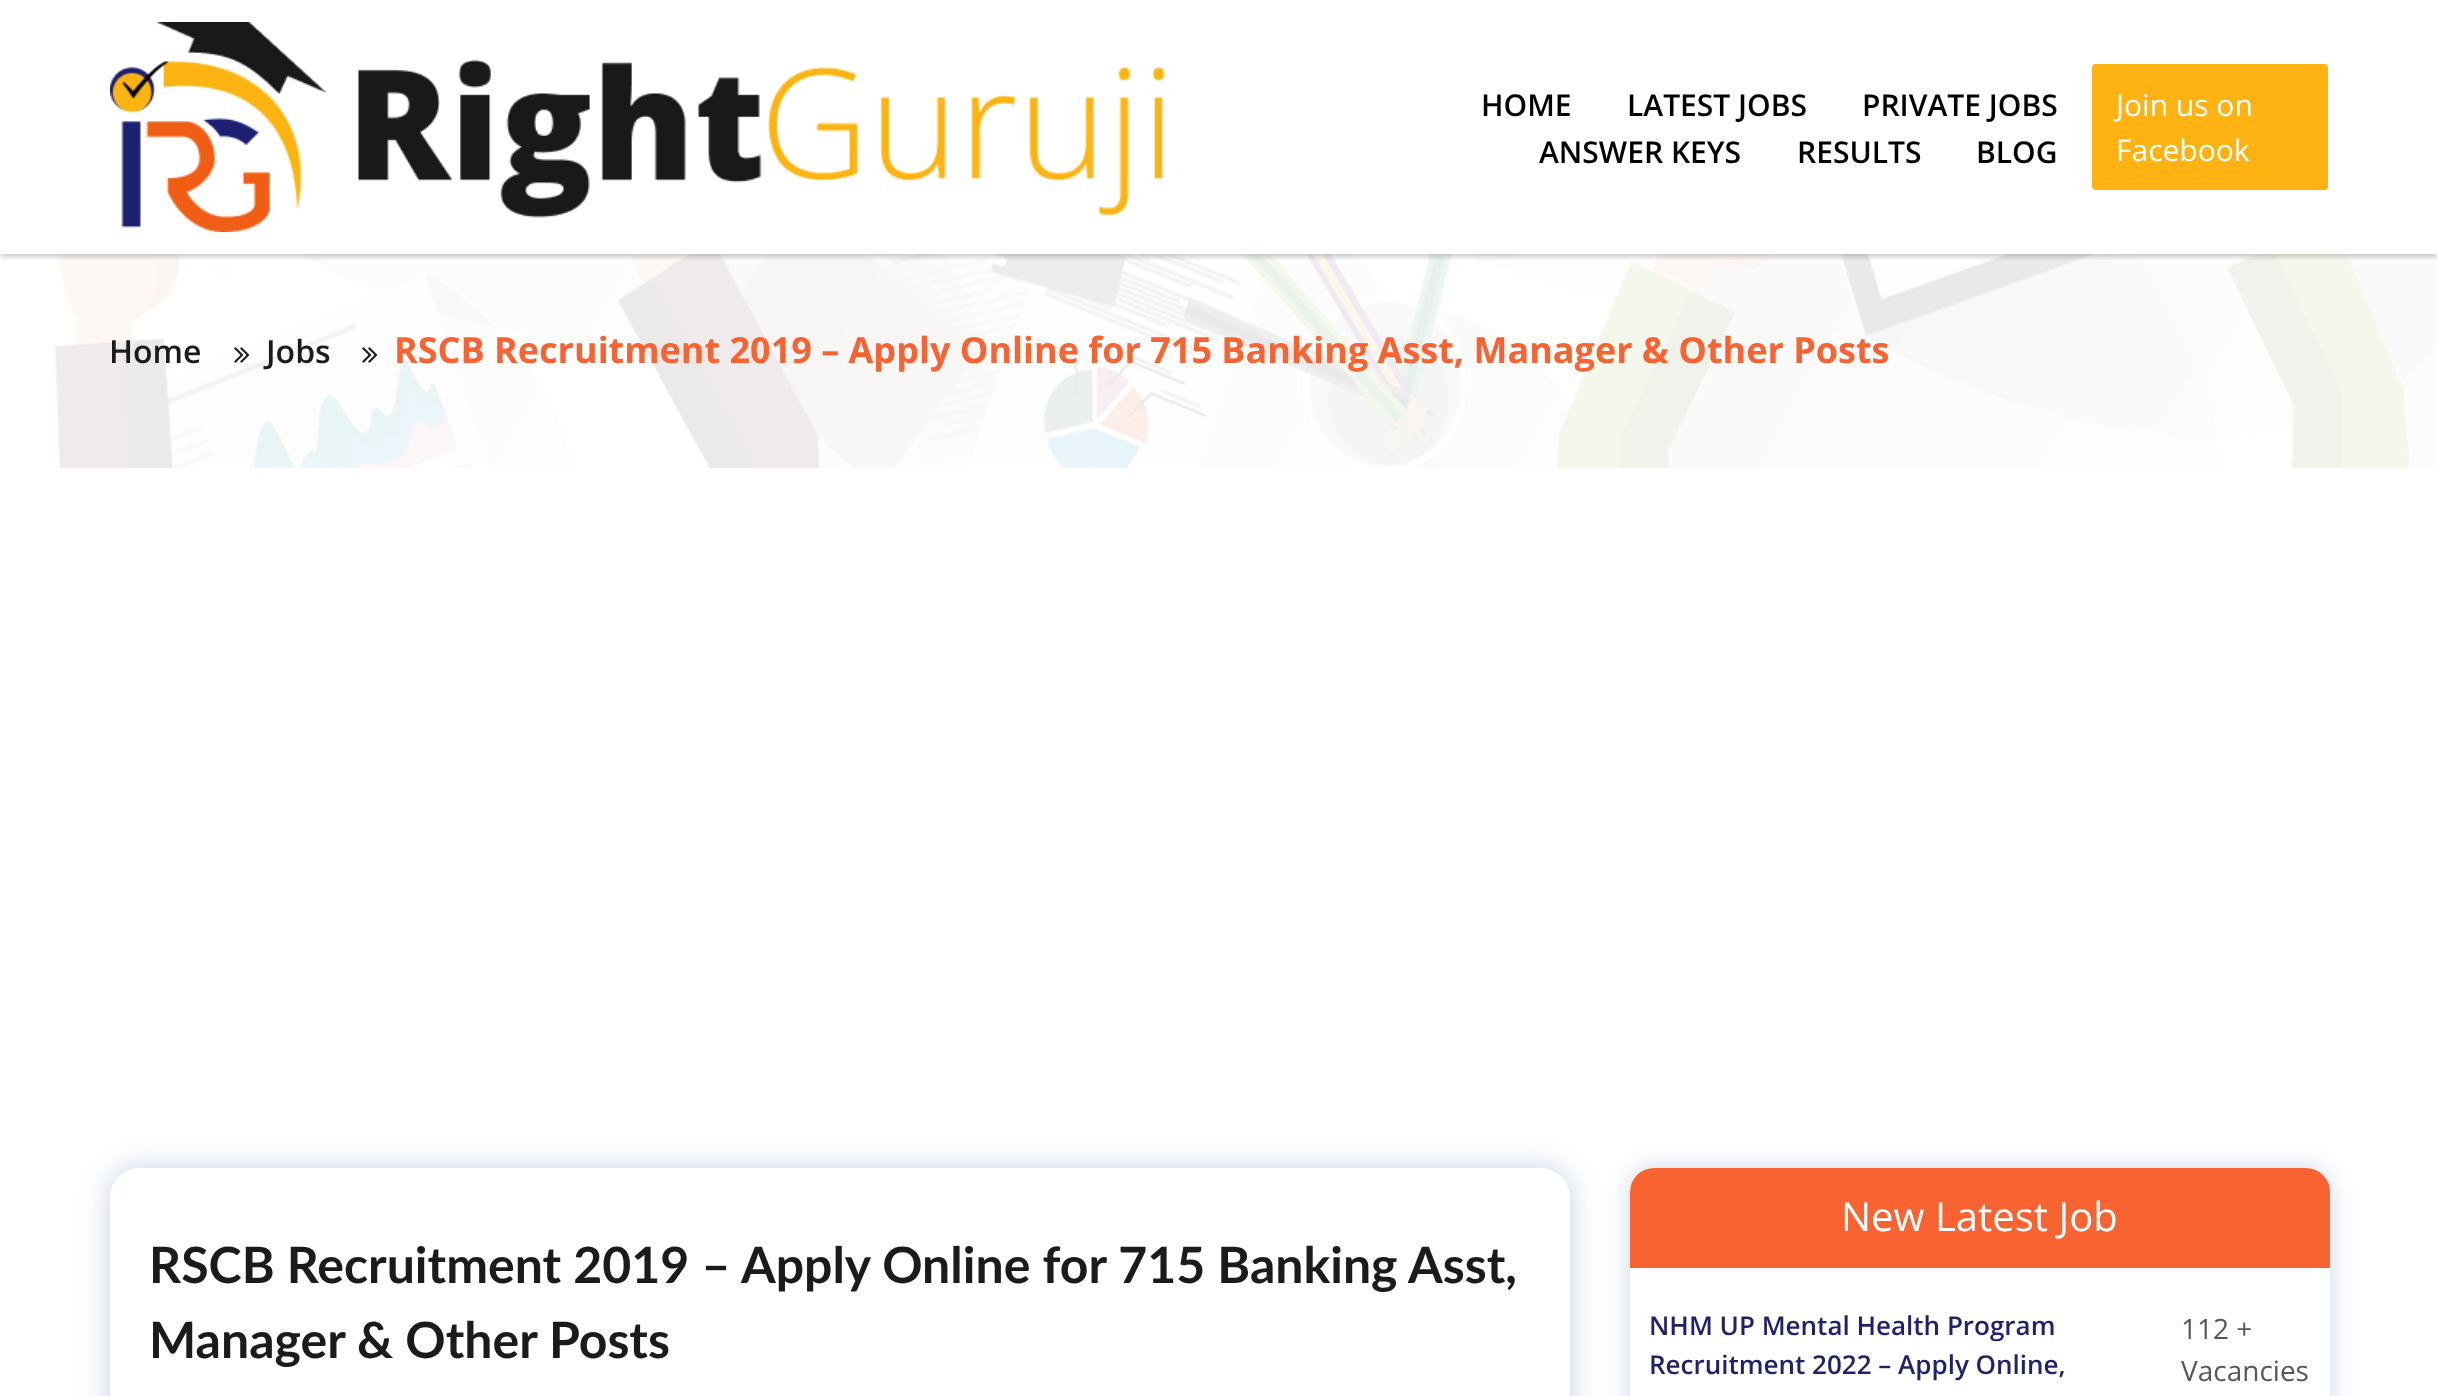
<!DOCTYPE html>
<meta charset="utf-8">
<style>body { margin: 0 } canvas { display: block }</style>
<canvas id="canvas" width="2437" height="1396"></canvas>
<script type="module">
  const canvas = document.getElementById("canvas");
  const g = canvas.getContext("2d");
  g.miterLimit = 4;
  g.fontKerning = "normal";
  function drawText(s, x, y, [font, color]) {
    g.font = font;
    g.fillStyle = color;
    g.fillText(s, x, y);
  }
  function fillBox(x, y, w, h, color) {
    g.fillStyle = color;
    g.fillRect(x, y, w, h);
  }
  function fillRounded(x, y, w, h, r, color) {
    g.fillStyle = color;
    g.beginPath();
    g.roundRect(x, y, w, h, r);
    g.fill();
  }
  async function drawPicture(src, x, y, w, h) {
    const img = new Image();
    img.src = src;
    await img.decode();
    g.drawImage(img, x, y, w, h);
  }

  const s1 = ["600 30px Open Sans", "#000000"];
  const s2 = ["30px Open Sans", "#FFFFFF"];
  const s3 = ["600 32px Open Sans", "#1C1A1B"];
  const s4 = ["bold 36px Open Sans", "#F96331"];
  const s5 = ["bold 50px Lato", "#1C1A1B"];
  const s6 = ["40px Open Sans", "#FFFFFF"];
  const s7 = ["600 26px Open Sans", "#221F6C"];
  const s8 = ["28px Open Sans", "#595656"];

  fillBox(0, 0, 2437, 1396, "#FFFFFF");
  await drawPicture("pic2.png", 54, 254, 2382, 214);
  g.save();
  g.beginPath();
  g.rect(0, 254, 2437, 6);
  g.clip();
  g.fillStyle = "rgba(0, 0, 0, 0.25)";
  g.filter = "blur(3px)";
  g.beginPath();
  g.rect(0, 2, 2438, 254);
  g.fill();
  g.filter = "none";
  g.restore();
  await drawPicture("pic1.png", 110, 22, 1056, 210);
  drawText("HOME", 1481, 116, s1);
  drawText("LATEST JOBS", 1627, 116, s1);
  drawText("PRIVATE JOBS", 1862, 116, s1);
  drawText("ANSWER KEYS", 1539, 163, s1);
  drawText("RESULTS", 1797, 163, s1);
  drawText("BLOG", 1976, 163, s1);
  fillRounded(2092, 64, 236, 126, 4, "#FFB313");
  drawText("Join us on", 2116, 116, s2);
  drawText("Facebook", 2116, 161, s2);
  drawText("Home", 109, 363, s3);
  await drawPicture("pic3.png", 234, 347, 16, 16);
  drawText("Jobs", 266, 363, s3);
  await drawPicture("pic4.png", 362, 347, 16, 16);
  drawText("RSCB Recruitment 2019 – Apply Online for 715 Banking Asst, Manager & Other Posts", 394, 363, s4);
  g.save();
  g.beginPath();
  g.moveTo(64, 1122);
  g.lineTo(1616, 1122);
  g.lineTo(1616, 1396);
  g.lineTo(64, 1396);
  g.closePath();
  g.moveTo(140, 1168);
  g.lineTo(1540, 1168);
  g.bezierCurveTo(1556.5, 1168, 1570, 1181.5, 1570, 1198);
  g.lineTo(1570, 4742);
  g.bezierCurveTo(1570, 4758.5, 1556.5, 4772, 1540, 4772);
  g.lineTo(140, 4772);
  g.bezierCurveTo(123.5, 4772, 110, 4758.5, 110, 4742);
  g.lineTo(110, 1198);
  g.bezierCurveTo(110, 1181.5, 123.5, 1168, 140, 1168);
  g.closePath();
  g.clip("evenodd");
  g.fillStyle = "rgba(12, 75, 139, 0.25)";
  g.filter = "blur(15px)";
  g.beginPath();
  g.roundRect(110, 1168, 1460, 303, 30);
  g.fill();
  g.filter = "none";
  g.restore();
  drawText("RSCB Recruitment 2019 – Apply Online for 715 Banking Asst,", 149, 1283, s5);
  drawText("Manager & Other Posts", 149, 1358, s5);
  g.save();
  g.beginPath();
  g.moveTo(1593, 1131);
  g.lineTo(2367, 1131);
  g.lineTo(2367, 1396);
  g.lineTo(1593, 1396);
  g.closePath();
  g.moveTo(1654, 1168);
  g.lineTo(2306, 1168);
  g.bezierCurveTo(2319.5, 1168, 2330, 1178.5, 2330, 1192);
  g.lineTo(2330, 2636);
  g.bezierCurveTo(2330, 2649.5, 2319.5, 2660, 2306, 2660);
  g.lineTo(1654, 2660);
  g.bezierCurveTo(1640.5, 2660, 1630, 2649.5, 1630, 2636);
  g.lineTo(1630, 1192);
  g.bezierCurveTo(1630, 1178.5, 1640.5, 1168, 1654, 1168);
  g.closePath();
  g.clip("evenodd");
  g.fillStyle = "rgba(12, 75, 139, 0.22)";
  g.filter = "blur(12px)";
  g.beginPath();
  g.roundRect(1630, 1168, 700, 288, 24);
  g.fill();
  g.filter = "none";
  g.restore();
  g.fillStyle = "#F96331";
  g.beginPath();
  g.roundRect(1630, 1168, 700, 100, [24, 24, 0, 0]);
  g.fill();
  drawText("New Latest Job", 1841, 1231, s6);
  drawText("NHM UP Mental Health Program", 1649, 1335, s7);
  drawText("Recruitment 2022 – Apply Online,", 1649, 1374, s7);
  drawText("112 +", 2181, 1339, s8);
  drawText("Vacancies", 2181, 1381, s8);
</script>
